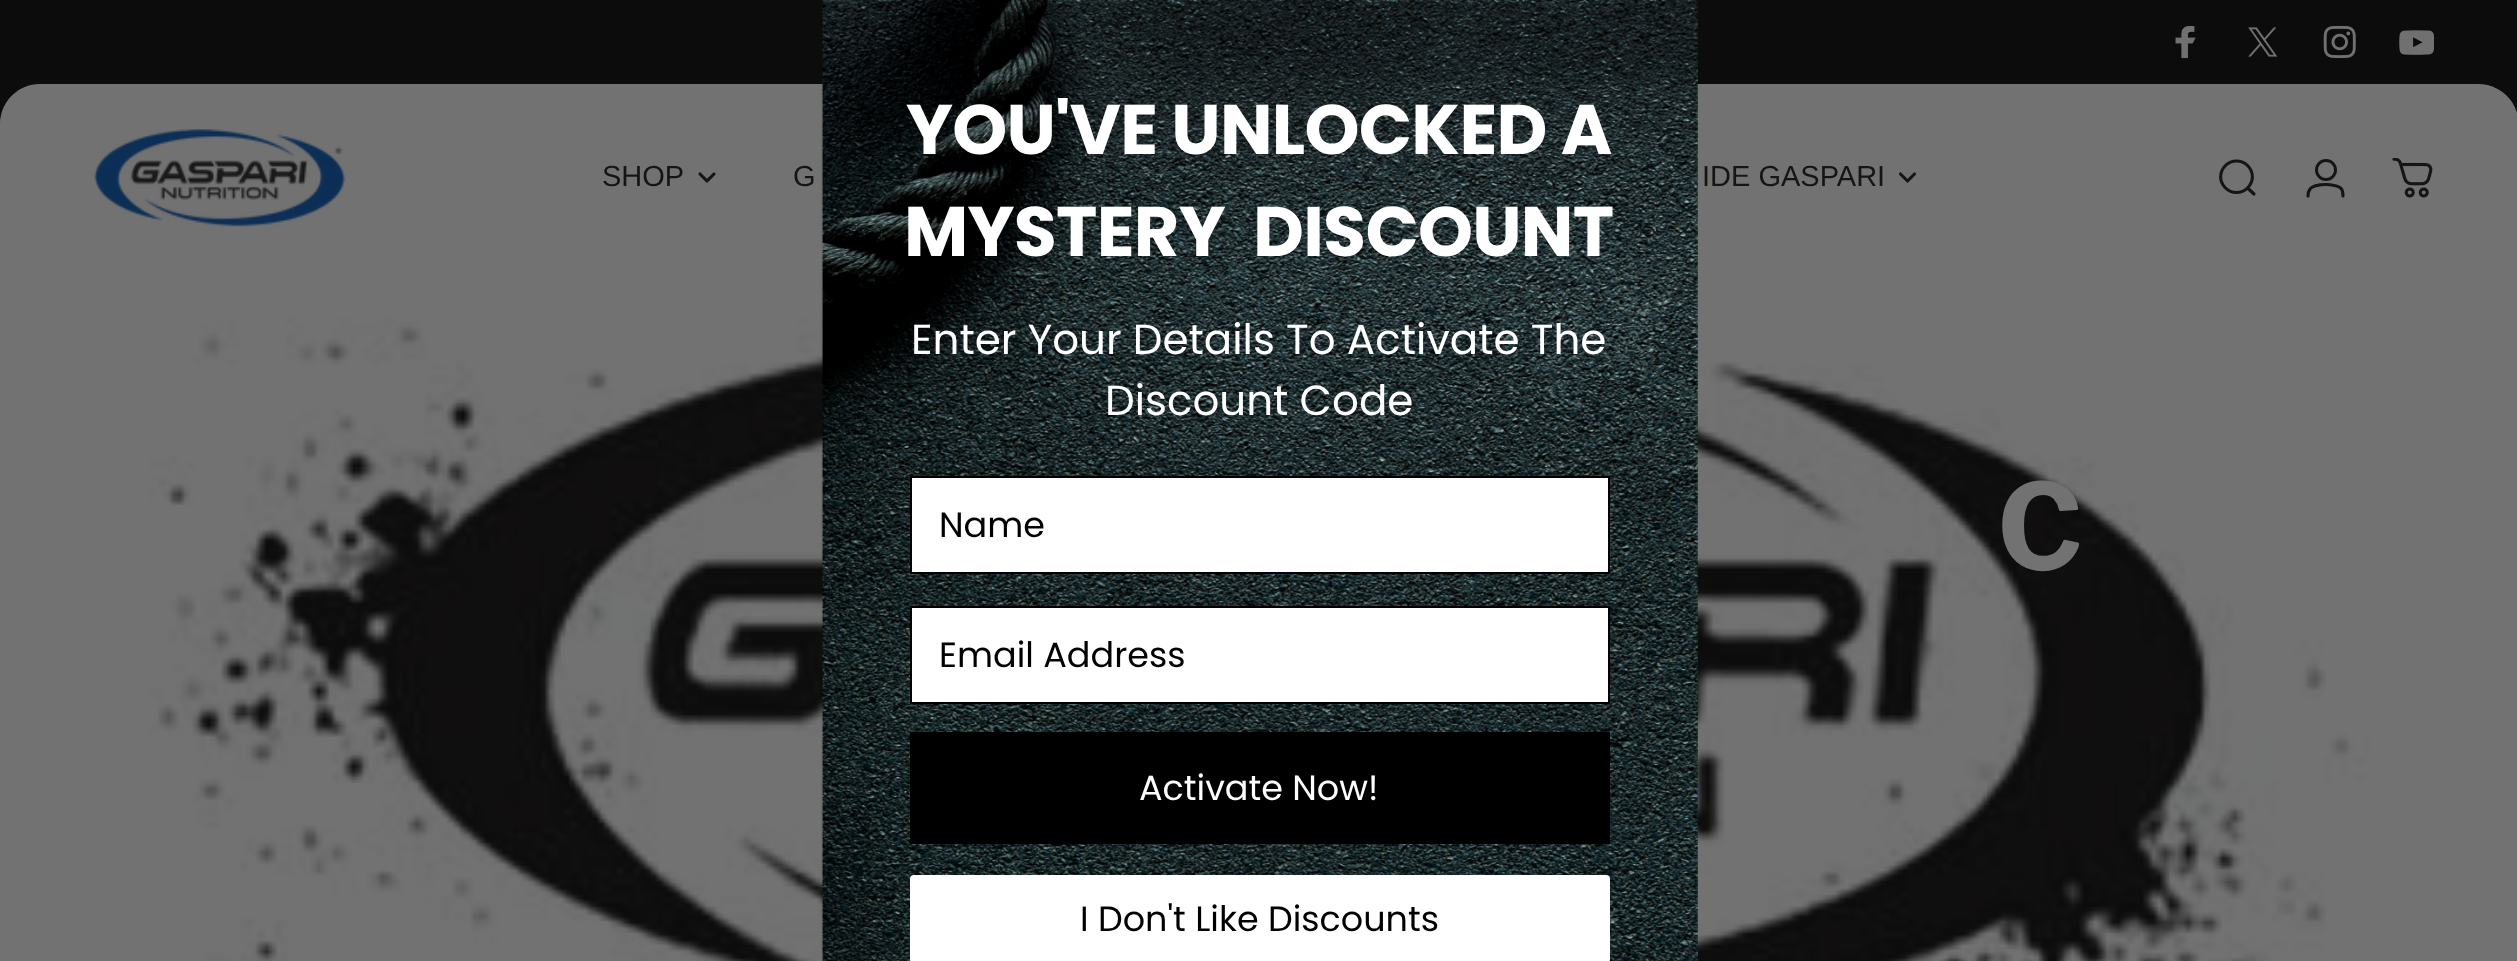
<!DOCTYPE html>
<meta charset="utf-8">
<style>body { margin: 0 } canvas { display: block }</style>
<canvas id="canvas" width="2517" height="961"></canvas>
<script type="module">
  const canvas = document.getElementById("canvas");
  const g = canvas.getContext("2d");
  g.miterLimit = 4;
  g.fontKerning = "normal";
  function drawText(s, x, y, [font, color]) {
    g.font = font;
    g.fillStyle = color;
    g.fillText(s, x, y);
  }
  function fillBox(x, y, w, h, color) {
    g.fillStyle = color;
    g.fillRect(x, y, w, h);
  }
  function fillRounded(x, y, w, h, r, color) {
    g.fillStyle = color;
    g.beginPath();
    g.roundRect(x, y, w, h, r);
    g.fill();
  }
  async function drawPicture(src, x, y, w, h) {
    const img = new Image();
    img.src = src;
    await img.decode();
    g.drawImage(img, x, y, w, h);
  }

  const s1 = ["bold 70px Poppins", "#FFFFFF"];
  const s2 = ["42px Poppins", "#FFFFFF"];
  const s3 = ["35px 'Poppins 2'", "#000000"];
  const s4 = ["35px 'Poppins 2'", "#FFFFFF"];
  const s5 = ["35px Poppins", "#000000"];
  const s6 = ["29px Liberation Sans", "#151515"];
  const s7 = ["bold 119px Libre Franklin", "#727272"];

  fillBox(0, 0, 2517, 961, "#727272");
  fillBox(0, 0, 2517, 84, "#0C0C0C");
  await drawPicture("pic1.png", 2175, 25, 21, 34);
  await drawPicture("pic2.png", 2248, 27, 30, 30);
  await drawPicture("pic3.png", 2323, 25, 33, 34);
  await drawPicture("pic4.png", 2399, 30, 35, 25);
  g.beginPath();
  g.moveTo(39.5, 84);
  g.lineTo(0, 84);
  g.lineTo(0, 123.5);
  g.lineTo(0.5, 123.5);
  g.bezierCurveTo(0.5, 102, 18, 84.5, 39.5, 84.5);
  g.closePath();
  g.fill("evenodd");
  g.beginPath();
  g.moveTo(2479, 84);
  g.lineTo(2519, 84);
  g.lineTo(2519, 123.5);
  g.lineTo(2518.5, 123.5);
  g.bezierCurveTo(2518.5, 102, 2501, 84.5, 2479, 84.5);
  g.closePath();
  g.fill("evenodd");
  g.fillStyle = "#727272";
  g.beginPath();
  g.moveTo(40, 84);
  g.lineTo(2478, 84);
  g.bezierCurveTo(2500, 84, 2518, 102, 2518, 124);
  g.lineTo(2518, 271);
  g.lineTo(0, 271);
  g.lineTo(0, 124);
  g.bezierCurveTo(0, 102, 18, 84, 40, 84);
  g.closePath();
  g.fill();
  await drawPicture("pic8.png", 149, 271, 2222, 690);
  await drawPicture("pic5.png", 821, 0, 877, 961);
  g.letterSpacing = "-0.75px";
  drawText("YOU'VE UNLOCKED A", 906, 154, s1);
  drawText("MYSTERY  DISCOUNT", 904, 256, s1);
  g.letterSpacing = "0px";
  drawText("Enter Your Details To Activate The", 911, 354, s2);
  drawText("Discount Code", 1105, 415, s2);
  g.beginPath();
  g.rect(911, 477, 698, 96);
  g.fill();
  g.strokeStyle = "#000000";
  g.lineWidth = 2;
  g.stroke();
  drawText("Name", 939, 537, s3);
  g.fillStyle = "#FFFFFF";
  g.beginPath();
  g.rect(911, 607, 698, 96);
  g.fill();
  g.stroke();
  drawText("Email Address", 939, 667, s3);
  fillBox(910, 732, 700, 112, "#000000");
  drawText("Activate Now!", 1139, 800, s4);
  fillRounded(910, 875, 700, 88, 4, "#FFFFFF");
  drawText("I Don't Like Discounts", 1080, 931, s5);
  await drawPicture("pic6.png", 94, 129, 252, 98);
  drawText("SHOP", 602, 186, s6);
  g.beginPath();
  g.moveTo(700, 174);
  g.lineTo(707, 181);
  g.lineTo(714, 174);
  g.strokeStyle = "#151515";
  g.lineWidth = 3.1;
  g.lineCap = "round";
  g.lineJoin = "round";
  g.stroke();
  drawText("G", 793, 186, s6);
  drawText("IDE GASPARI", 1702, 186, s6);
  g.beginPath();
  g.moveTo(1900.5, 174);
  g.lineTo(1907.5, 181);
  g.lineTo(1914.5, 174);
  g.stroke();
  g.beginPath();
  g.moveTo(2254, 194);
  g.lineTo(2247.5, 188);
  g.moveTo(2247.5, 188);
  g.bezierCurveTo(2254, 181.5, 2254, 172, 2247.5, 165.5);
  g.bezierCurveTo(2241.5, 159.5, 2231.5, 159.5, 2225.5, 165.5);
  g.bezierCurveTo(2219, 172, 2219, 181.5, 2225.5, 188);
  g.bezierCurveTo(2231.5, 194, 2241.5, 194, 2247.5, 188);
  g.closePath();
  g.lineJoin = "miter";
  g.stroke();
  g.beginPath();
  g.arc(2326, 170, 9.5, 0, Math.PI * 2);
  g.lineWidth = 3;
  g.stroke();
  g.beginPath();
  g.moveTo(2326, 184.5);
  g.bezierCurveTo(2330, 184.5, 2339, 185.5, 2341.5, 189);
  g.bezierCurveTo(2343, 191, 2343, 193.5, 2343, 196);
  g.moveTo(2326, 184.5);
  g.bezierCurveTo(2321.5, 184.5, 2312.5, 185.5, 2310, 189);
  g.bezierCurveTo(2308.5, 191, 2308, 193.5, 2308, 196);
  g.lineWidth = 3.1;
  g.stroke();
  await drawPicture("pic7.png", 2392, 158, 41, 40);
  g.letterSpacing = "-5px";
  drawText("C", 1997, 570, s7);
</script>
